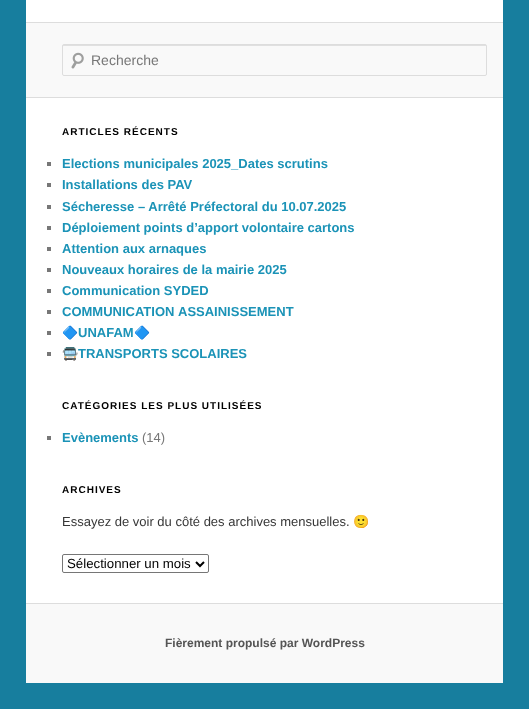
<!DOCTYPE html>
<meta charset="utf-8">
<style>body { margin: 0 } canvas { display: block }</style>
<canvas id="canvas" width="529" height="709"></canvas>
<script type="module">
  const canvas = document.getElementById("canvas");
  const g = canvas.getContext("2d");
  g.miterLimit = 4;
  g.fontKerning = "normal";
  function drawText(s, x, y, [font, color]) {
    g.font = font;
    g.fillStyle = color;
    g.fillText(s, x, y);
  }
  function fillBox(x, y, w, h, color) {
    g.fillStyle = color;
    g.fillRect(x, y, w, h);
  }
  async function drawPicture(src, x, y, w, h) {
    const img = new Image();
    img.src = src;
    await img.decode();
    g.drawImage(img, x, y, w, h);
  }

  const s1 = ["14px Liberation Sans", "#777777"];
  const s2 = ["bold 10px Liberation Sans", "#000000"];
  const s3 = ["bold 13px Liberation Sans", "#1B93B7"];
  const s4 = ["bold 13px Noto Color Emoji", "#1B93B7"];
  const s5 = ["13px Liberation Sans", "#777777"];
  const s6 = ["13px Liberation Sans", "#373737"];
  const s7 = ["13px Noto Color Emoji", "#373737"];
  const s8 = ["13.25px Liberation Sans", "#000000"];
  const s9 = ["bold 12px Liberation Sans", "#555555"];

  fillBox(0, 0, 529, 709, "#177E9E");
  fillBox(26, 0, 477, 603, "#FFFFFF");
  fillBox(26, 23, 477, 74, "#F9F9F9");
  fillBox(26, 22, 477, 1, "#DDDDDD");
  fillBox(26, 97, 477, 1, "#DDDDDD");
  await drawPicture("pic1.png", 71, 52, 13, 17);
  g.fillStyle = "#E0E0E0";
  g.beginPath();
  g.moveTo(64, 46);
  g.lineTo(485, 46);
  g.lineTo(486, 46);
  g.lineTo(486, 47);
  g.lineTo(486, 46);
  g.bezierCurveTo(486, 45, 486, 45, 485, 45);
  g.lineTo(64, 45);
  g.bezierCurveTo(63, 45, 63, 45, 63, 46);
  g.lineTo(63, 47);
  g.bezierCurveTo(63, 46, 63, 46, 64, 46);
  g.closePath();
  g.fill();
  g.beginPath();
  g.roundRect(62.5, 44.5, 424, 31, 1.5);
  g.strokeStyle = "#DDDDDD";
  g.stroke();
  drawText("Recherche", 91, 65, s1);
  g.letterSpacing = "1px";
  drawText("ARTICLES RÉCENTS", 62, 135, s2);
  fillBox(47, 162, 4, 4, "#777777");
  g.letterSpacing = "0px";
  drawText("Elections municipales 2025_Dates scrutins", 62, 168, s3);
  fillBox(47, 183, 4, 4, "#777777");
  drawText("Installations des PAV", 62, 189, s3);
  fillBox(47, 205, 4, 4, "#777777");
  drawText("Sécheresse – Arrêté Préfectoral du 10.07.2025", 62, 211, s3);
  fillBox(47, 226, 4, 4, "#777777");
  drawText("Déploiement points d’apport volontaire cartons", 62, 232, s3);
  fillBox(47, 247, 4, 4, "#777777");
  drawText("Attention aux arnaques", 62, 253, s3);
  fillBox(47, 268, 4, 4, "#777777");
  drawText("Nouveaux horaires de la mairie 2025", 62, 274, s3);
  fillBox(47, 289, 4, 4, "#777777");
  drawText("Communication SYDED", 62, 295, s3);
  fillBox(47, 310, 4, 4, "#777777");
  drawText("COMMUNICATION", 62, 316, s3);
  drawText("ASSAINISSEMENT", 178, 316, s3);
  fillBox(47, 331, 4, 4, "#777777");
  drawText("🔷️", 62, 337, s4);
  drawText("UNAFAM", 78, 337, s3);
  drawText("🔷️", 134, 337, s4);
  fillBox(47, 352, 4, 4, "#777777");
  drawText("🚍", 62, 358, s4);
  drawText("TRANSPORTS SCOLAIRES", 78, 358, s3);
  g.letterSpacing = "1px";
  drawText("CATÉGORIES LES PLUS UTILISÉES", 62, 409, s2);
  fillBox(47, 436, 4, 4, "#777777");
  g.letterSpacing = "0px";
  drawText("Evènements", 62, 442, s3);
  drawText("(14)", 142, 442, s5);
  g.letterSpacing = "1px";
  drawText("ARCHIVES", 62, 493, s2);
  g.letterSpacing = "0px";
  drawText("Essayez de voir du côté des archives mensuelles.", 62, 526, s6);
  drawText("🙂", 353, 526, s7);
  g.beginPath();
  g.roundRect(62.5, 554.5, 146, 18, 1.5);
  g.strokeStyle = "#767676";
  g.stroke();
  g.beginPath();
  g.moveTo(196, 562);
  g.lineTo(200, 566);
  g.lineTo(204, 562);
  g.strokeStyle = "#000000";
  g.lineWidth = 2;
  g.stroke();
  drawText("Sélectionner un mois", 67, 568, s8);
  fillBox(26, 604, 477, 79, "#F9F9F9");
  fillBox(26, 603, 477, 1, "#DDDDDD");
  drawText("Fièrement propulsé par WordPress", 165, 647, s9);
</script>
